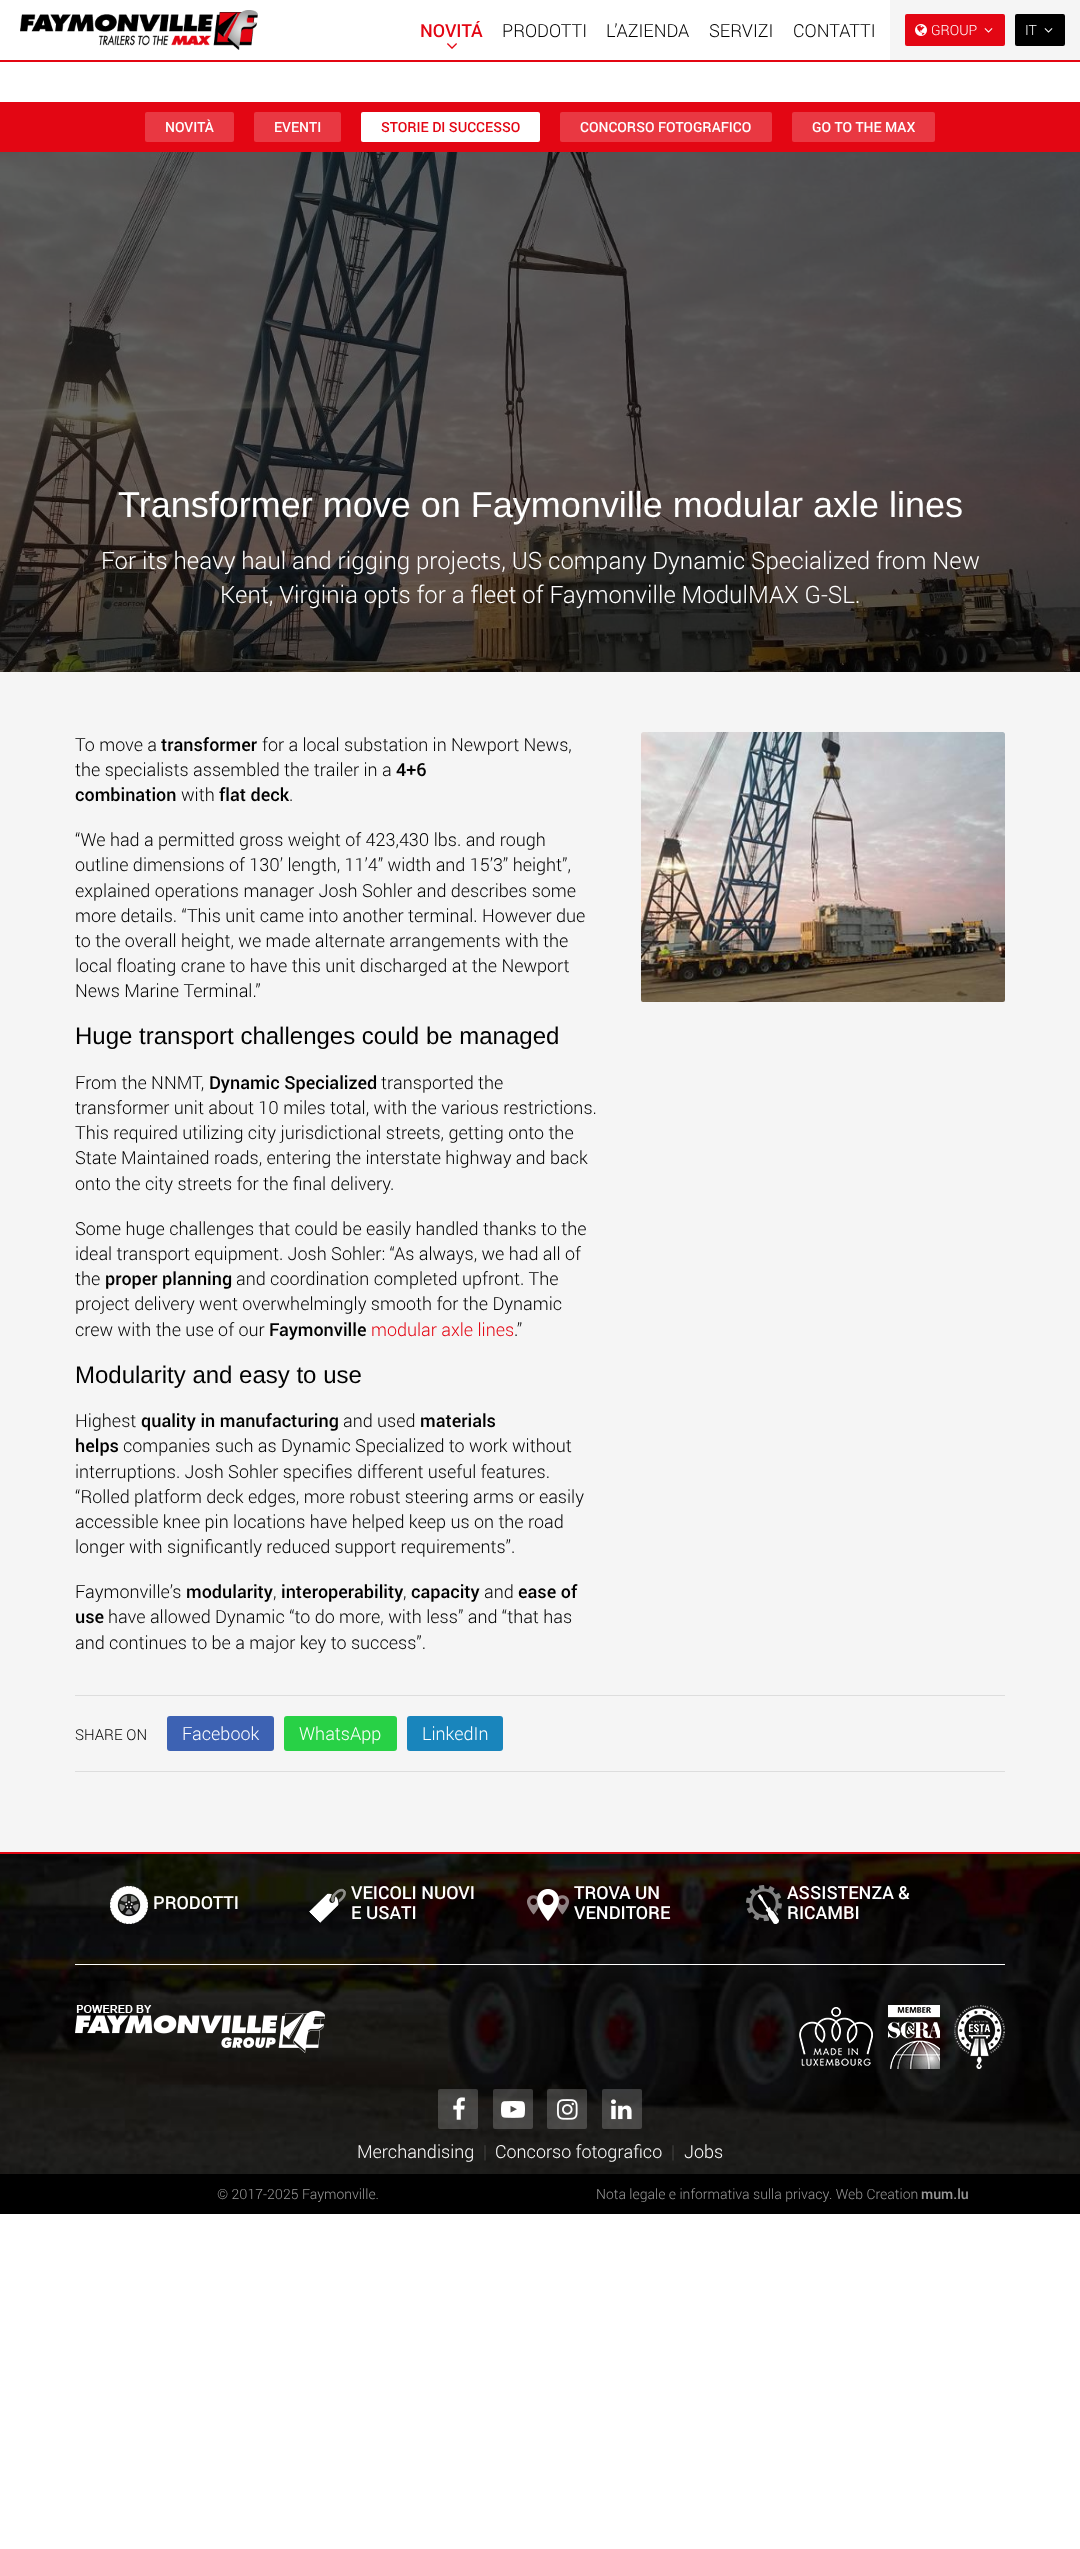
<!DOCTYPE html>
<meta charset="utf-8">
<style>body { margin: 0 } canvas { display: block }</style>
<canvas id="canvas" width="1080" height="2549"></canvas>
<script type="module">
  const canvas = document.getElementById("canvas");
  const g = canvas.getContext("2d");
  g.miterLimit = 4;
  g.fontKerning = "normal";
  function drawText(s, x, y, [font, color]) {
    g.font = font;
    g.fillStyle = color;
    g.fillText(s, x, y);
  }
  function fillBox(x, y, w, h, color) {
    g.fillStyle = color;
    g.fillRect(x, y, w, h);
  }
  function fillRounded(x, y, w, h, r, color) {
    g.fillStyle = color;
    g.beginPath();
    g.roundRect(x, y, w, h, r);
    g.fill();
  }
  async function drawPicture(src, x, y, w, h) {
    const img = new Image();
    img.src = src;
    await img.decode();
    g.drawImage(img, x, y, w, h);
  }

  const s1 = ["500 18px Roboto", "#E30613"];
  const s2 = ["300 18px Roboto", "#000000"];
  const s3 = ["300 14px Roboto", "#FFFFFF"];
  const s4 = ["500 14px Roboto", "#FFFFFF"];
  const s5 = ["500 14px Roboto", "#E30613"];
  const s6 = ["36px Liberation Sans", "#FFFFFF"];
  const s7 = ["300 24px Roboto", "#FFFFFF"];
  const s8 = ["500 18px Roboto", "#000000"];
  const s9 = ["24px Liberation Sans", "#000000"];
  const s10 = ["300 18px Roboto", "#E30613"];
  const s11 = ["300 15px Roboto", "#000000"];
  const s12 = ["300 18px Roboto", "#FFFFFF"];
  const s13 = ["500 18px Roboto", "#FFFFFF"];
  const s14 = ["300 18px Roboto", "#4A4948"];
  const s15 = ["300 14px Roboto", "#999999"];
  const s16 = ["500 14px Roboto", "#999999"];

  fillBox(0, 0, 1080, 2549, "#FFFFFF");
  fillBox(0, 60, 1080, 2, "#E30613");
  await drawPicture("pic1.png", 20, 10, 238, 40);
  drawText("NOVITÁ", 420, 37, s1);
  await drawPicture("pic2.png", 447, 43, 10, 6);
  drawText("PRODOTTI", 502, 37, s2);
  drawText("L’AZIENDA", 606, 37, s2);
  drawText("SERVIZI", 709, 37, s2);
  drawText("CONTATTI", 793, 37, s2);
  fillBox(890, 0, 190, 60, "#F5F5F5");
  fillRounded(905, 14, 100, 32, 2, "#E30613");
  await drawPicture("pic3.png", 915, 24, 12, 12);
  drawText("GROUP", 931, 35, s3);
  await drawPicture("pic4.png", 984, 28, 9, 5);
  fillRounded(1015, 14, 50, 32, 2, "#000000");
  drawText("IT", 1025, 35, s3);
  await drawPicture("pic5.png", 1044, 28, 9, 5);
  fillBox(0, 102, 1080, 50, "#E30613");
  fillRounded(145, 112, 89, 30, 2, "#E93842");
  drawText("NOVITÀ", 165, 132, s4);
  fillRounded(254, 112, 87, 30, 2, "#E93842");
  drawText("EVENTI", 274, 132, s4);
  fillRounded(361, 112, 179, 30, 2, "#FFFFFF");
  drawText("STORIE DI SUCCESSO", 381, 132, s5);
  fillRounded(560, 112, 212, 30, 2, "#E93842");
  drawText("CONCORSO FOTOGRAFICO", 580, 132, s4);
  fillRounded(792, 112, 143, 30, 2, "#E93842");
  drawText("GO TO THE MAX", 812, 132, s4);
  await drawPicture("pic6.png", 0, 152, 1080, 520);
  drawText("Transformer move on Faymonville modular axle lines", 118, 517, s6);
  drawText("For its heavy haul and rigging projects, US company Dynamic Specialized from New", 101, 569, s7);
  drawText("Kent, Virginia opts for a fleet of Faymonville ModulMAX G-SL.", 220, 603, s7);
  fillBox(0, 672, 1080, 1180, "#F5F5F5");
  drawText("To move a", 75, 751, s2);
  drawText("transformer", 161, 751, s8);
  drawText("for a local substation in Newport News,", 262, 751, s2);
  drawText("the specialists assembled the trailer in a", 75, 776, s2);
  drawText("4+6", 396, 776, s8);
  drawText("combination", 75, 801, s8);
  drawText("with", 181, 801, s2);
  drawText("flat deck", 219, 801, s8);
  drawText(".", 289, 801, s2);
  drawText("“We had a permitted gross weight of 423,430 lbs. and rough", 75, 846, s2);
  drawText("outline dimensions of 130’ length, 11’4” width and 15’3” height”,", 75, 871, s2);
  drawText("explained operations manager Josh Sohler and describes some", 75, 897, s2);
  drawText("more details. “This unit came into another terminal. However due", 75, 922, s2);
  drawText("to the overall height, we made alternate arrangements with the", 75, 947, s2);
  drawText("local floating crane to have this unit discharged at the Newport", 75, 972, s2);
  drawText("News Marine Terminal.”", 75, 997, s2);
  drawText("Huge transport challenges could be managed", 75, 1044, s9);
  drawText("From the NNMT,", 75, 1089, s2);
  drawText("Dynamic Specialized", 209, 1089, s8);
  drawText("transported the", 381, 1089, s2);
  drawText("transformer unit about 10 miles total, with the various restrictions.", 75, 1114, s2);
  drawText("This required utilizing city jurisdictional streets, getting onto the", 75, 1139, s2);
  drawText("State Maintained roads, entering the interstate highway and back", 75, 1164, s2);
  drawText("onto the city streets for the final delivery.", 75, 1190, s2);
  drawText("Some huge challenges that could be easily handled thanks to the", 75, 1235, s2);
  drawText("ideal transport equipment. Josh Sohler: “As always, we had all of", 75, 1260, s2);
  drawText("the", 75, 1285, s2);
  drawText("proper planning", 105, 1285, s8);
  drawText("and coordination completed upfront. The", 236, 1285, s2);
  drawText("project delivery went overwhelmingly smooth for the Dynamic", 75, 1310, s2);
  drawText("crew with the use of our", 75, 1336, s2);
  drawText("Faymonville", 269, 1336, s8);
  drawText("modular axle lines", 371, 1336, s10);
  drawText(".”", 514, 1336, s2);
  drawText("Modularity and easy to use", 75, 1383, s9);
  drawText("Highest", 75, 1427, s2);
  drawText("quality in manufacturing", 141, 1427, s8);
  drawText("and used", 343, 1427, s2);
  drawText("materials", 420, 1427, s8);
  drawText("helps", 75, 1452, s8);
  drawText("companies such as Dynamic Specialized to work without", 123, 1452, s2);
  drawText("interruptions. Josh Sohler specifies different useful features.", 75, 1478, s2);
  drawText("“Rolled platform deck edges, more robust steering arms or easily", 75, 1503, s2);
  drawText("accessible knee pin locations have helped keep us on the road", 75, 1528, s2);
  drawText("longer with significantly reduced support requirements”.", 75, 1553, s2);
  drawText("Faymonville’s", 75, 1598, s2);
  drawText("modularity", 186, 1598, s8);
  drawText(",", 273, 1598, s2);
  drawText("interoperability", 281, 1598, s8);
  drawText(",", 403, 1598, s2);
  drawText("capacity", 411, 1598, s8);
  drawText("and", 484, 1598, s2);
  drawText("ease of", 518, 1598, s8);
  drawText("use", 75, 1623, s8);
  drawText("have allowed Dynamic “to do more, with less” and “that has", 108, 1623, s2);
  drawText("and continues to be a major key to success”.", 75, 1649, s2);
  await drawPicture("pic7.png", 641, 732, 364, 270);
  fillBox(75, 1695, 930, 1, "#DDDDDD");
  fillBox(75, 1771, 930, 1, "#DDDDDD");
  drawText("SHARE ON", 75, 1740, s11);
  fillRounded(167, 1716, 107, 35, 3, "#3D62B3");
  drawText("Facebook", 182, 1740, s12);
  fillRounded(284, 1716, 113, 35, 3, "#28D146");
  drawText("WhatsApp", 299, 1740, s12);
  fillRounded(407, 1716, 96, 35, 3, "#1985BC");
  drawText("LinkedIn", 422, 1740, s12);
  fillBox(0, 2174, 1080, 40, "#000000");
  fillBox(0, 1852, 1080, 2, "#E30613");
  await drawPicture("pic8.png", 0, 1854, 1080, 320);
  await drawPicture("pic9.png", 110, 1886, 38, 38);
  drawText("PRODOTTI", 153, 1909, s13);
  await drawPicture("pic10.png", 309, 1888, 37, 35);
  drawText("VEICOLI NUOVI", 351, 1899, s13);
  drawText("E USATI", 351, 1919, s13);
  await drawPicture("pic11.png", 527, 1889, 42, 32);
  drawText("TROVA UN", 574, 1899, s13);
  drawText("VENDITORE", 574, 1919, s13);
  await drawPicture("pic12.png", 746, 1885, 36, 39);
  drawText("ASSISTENZA &", 787, 1899, s13);
  drawText("RICAMBI", 787, 1919, s13);
  fillBox(75, 1964, 930, 1, "#FFFFFF");
  await drawPicture("pic13.png", 75, 2005, 250, 48);
  await drawPicture("pic14.png", 799, 2007, 74, 59);
  await drawPicture("pic15.png", 888, 2005, 52, 64);
  await drawPicture("pic16.png", 954, 2005, 51, 64);
  fillRounded(438, 2089, 40, 40, 2, "rgba(255, 255, 255, 0.2)");
  await drawPicture("pic17.png", 453, 2097, 12, 23);
  fillRounded(493, 2089, 40, 40, 2, "rgba(255, 255, 255, 0.2)");
  await drawPicture("pic18.png", 501, 2101, 24, 17);
  fillRounded(547, 2089, 40, 40, 2, "rgba(255, 255, 255, 0.2)");
  await drawPicture("pic19.png", 557, 2099, 21, 21);
  fillRounded(602, 2089, 40, 40, 2, "rgba(255, 255, 255, 0.2)");
  await drawPicture("pic20.png", 611, 2099, 21, 21);
  drawText("Merchandising", 357, 2158, s12);
  drawText("|", 483, 2158, s14);
  drawText("Concorso fotografico", 495, 2158, s12);
  drawText("|", 671, 2158, s14);
  drawText("Jobs", 684, 2158, s12);
  drawText("© 2017-2025 Faymonville.", 217, 2199, s15);
  drawText("Nota legale e informativa sulla privacy", 596, 2199, s15);
  drawText(". Web Creation", 829, 2199, s15);
  drawText("mum.lu", 921, 2199, s16);
</script>
